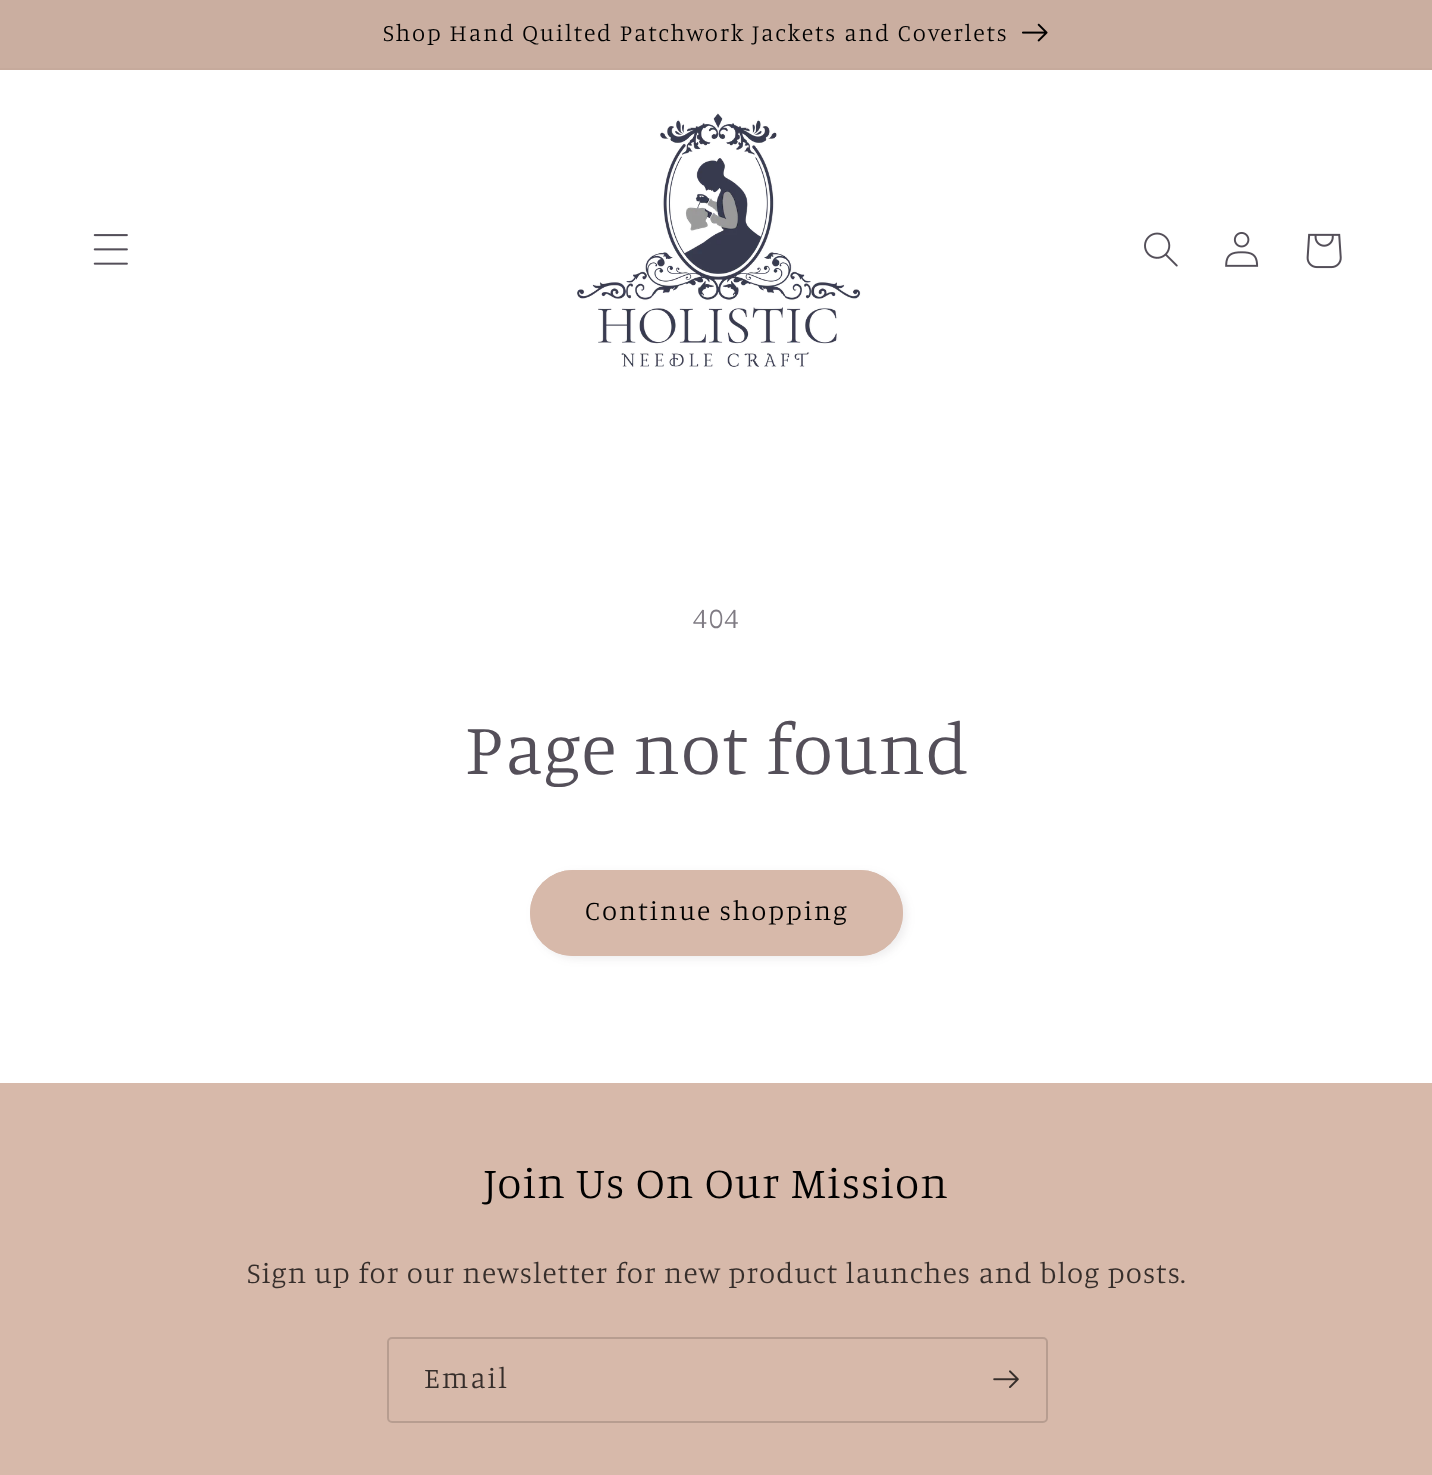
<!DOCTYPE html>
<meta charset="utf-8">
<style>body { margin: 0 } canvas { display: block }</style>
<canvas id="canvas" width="1432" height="1475"></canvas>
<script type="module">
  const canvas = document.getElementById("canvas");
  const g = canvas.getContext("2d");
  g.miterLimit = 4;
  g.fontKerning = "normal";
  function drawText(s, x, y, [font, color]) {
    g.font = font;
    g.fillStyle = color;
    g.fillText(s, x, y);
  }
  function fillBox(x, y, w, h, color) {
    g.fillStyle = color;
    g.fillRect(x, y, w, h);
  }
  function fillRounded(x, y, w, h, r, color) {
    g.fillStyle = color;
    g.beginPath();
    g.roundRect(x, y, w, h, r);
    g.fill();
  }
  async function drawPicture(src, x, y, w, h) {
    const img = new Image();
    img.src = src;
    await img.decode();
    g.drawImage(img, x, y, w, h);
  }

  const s1 = ["300 23.9px Manuale", "#000000"];
  const s2 = ["300 29.4px Manuale", "#7F7B83"];
  const s3 = ["300 73.5px Manuale", "#544F59"];
  const s4 = ["300 27.5px Manuale", "#000000"];
  const s5 = ["300 44.1px Manuale", "#000000"];
  const s6 = ["300 29.4px Manuale", "#362E2B"];

  fillBox(0, 0, 1432, 1475, "#FFFFFF");
  fillBox(0, 68, 1432, 2, "#C6AA9C");
  fillBox(0, 0, 1432, 68, "#CAAEA0");
  g.letterSpacing = "1.85px";
  drawText("Shop Hand Quilted Patchwork Jackets and Coverlets", 383, 41, s1);
  await drawPicture("pic1.png", 1022, 23, 26, 19);
  await drawPicture("pic2.png", 93, 234, 35, 31);
  await drawPicture("pic3.png", 577, 113, 284, 254);
  await drawPicture("pic4.png", 1144, 232, 34, 35);
  await drawPicture("pic5.png", 1225, 232, 34, 35);
  await drawPicture("pic6.png", 1306, 233, 36, 36);
  g.letterSpacing = "1.1px";
  drawText("404", 693, 628, s2);
  drawText("Page not found", 465, 774, s3);
  g.fillStyle = "rgba(84, 79, 89, 0.1)";
  g.filter = "blur(4.5px)";
  g.beginPath();
  g.roundRect(534, 873, 373, 86, 43);
  g.fill();
  g.filter = "none";
  fillRounded(530, 870, 373, 86, 43, "#D7B9AA");
  g.beginPath();
  g.roundRect(531, 871, 371, 84, 42);
  g.strokeStyle = "#D7B9AA";
  g.lineWidth = 2;
  g.stroke();
  g.letterSpacing = "1.85px";
  drawText("Continue shopping", 585, 920, s4);
  fillBox(0, 1083, 1432, 392, "#D7B9AA");
  g.letterSpacing = "1.1px";
  drawText("Join Us On Our Mission", 484, 1198, s5);
  drawText("Sign up for our newsletter for new product launches and blog posts.", 247, 1283, s6);
  g.beginPath();
  g.roundRect(388, 1338, 659, 84, 4);
  g.strokeStyle = "rgba(0, 0, 0, 0.15)";
  g.stroke();
  g.letterSpacing = "1.85px";
  drawText("Email", 424, 1388, s6);
  await drawPicture("pic7.png", 993, 1370, 26, 18);
</script>
